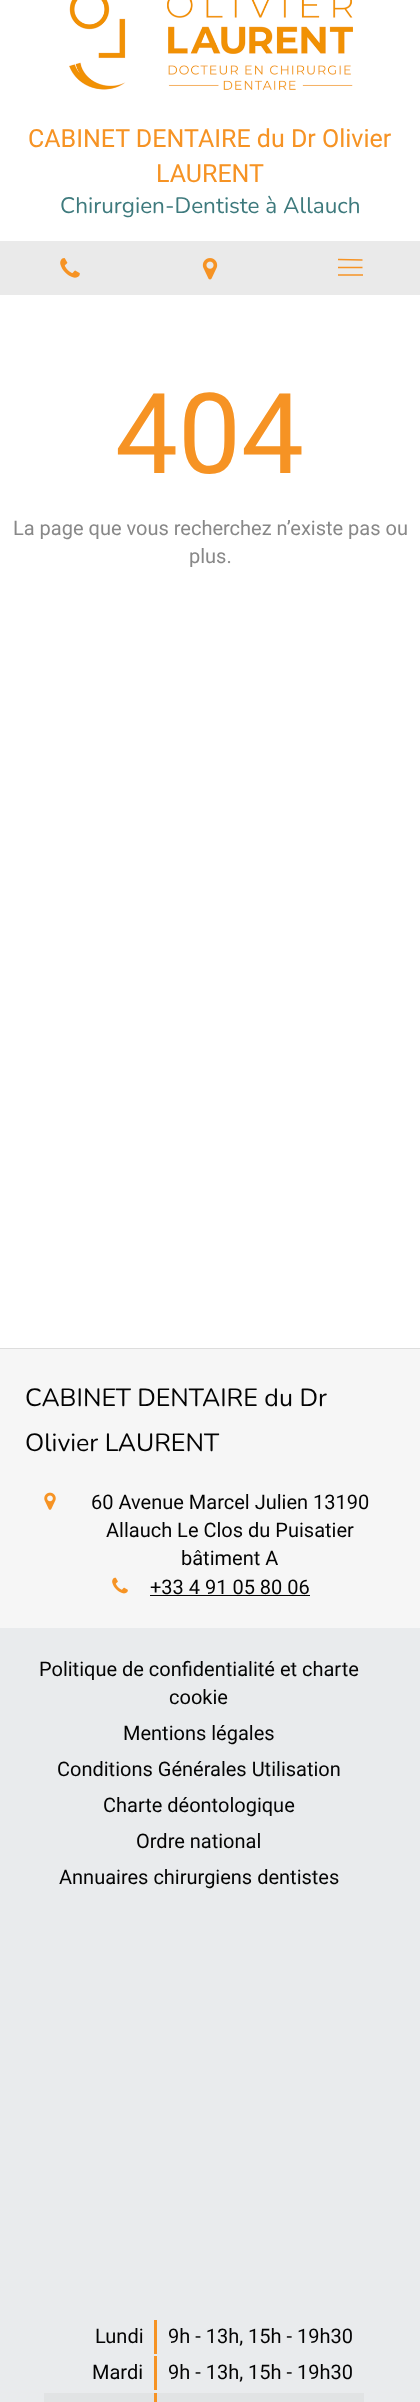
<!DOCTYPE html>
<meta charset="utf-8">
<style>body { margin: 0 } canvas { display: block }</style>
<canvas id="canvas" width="420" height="2402"></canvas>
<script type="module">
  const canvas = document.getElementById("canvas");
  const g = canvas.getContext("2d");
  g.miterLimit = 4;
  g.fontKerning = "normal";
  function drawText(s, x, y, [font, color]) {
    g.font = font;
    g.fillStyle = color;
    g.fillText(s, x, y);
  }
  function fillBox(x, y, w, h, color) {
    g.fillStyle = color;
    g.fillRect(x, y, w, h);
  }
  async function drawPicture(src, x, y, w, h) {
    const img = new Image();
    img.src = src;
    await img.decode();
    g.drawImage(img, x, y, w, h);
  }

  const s1 = ["25px Roboto", "#F69324"];
  const s2 = ["22.5px Nunito", "#3E7A7D"];
  const s3 = ["112px Roboto", "#F69324"];
  const s4 = ["20px Roboto", "#888888"];
  const s5 = ["25px Nunito", "#030303"];
  const s6 = ["20px Roboto", "#030303"];

  fillBox(0, 0, 420, 2402, "#FFFFFF");
  await drawPicture("pic1.png", 69, 0, 284, 90);
  drawText("CABINET DENTAIRE du Dr Olivier", 28, 147, s1);
  drawText("LAURENT", 156, 182, s1);
  drawText("Chirurgien-Dentiste à Allauch", 60, 213, s2);
  fillBox(0, 241, 420, 54, "#EAEAEA");
  await drawPicture("pic2.png", 60, 258, 20, 20);
  await drawPicture("pic3.png", 202, 258, 16, 22);
  g.save();
  g.beginPath();
  g.rect(338, 255, 25, 25);
  g.clip();
  g.beginPath();
  g.moveTo(337.5, 267.5);
  g.lineTo(362.5, 267.5);
  g.moveTo(337.5, 259.5);
  g.lineTo(362.5, 260);
  g.strokeStyle = "#F69324";
  g.lineWidth = 1.5;
  g.stroke();
  g.restore();
  fillBox(338, 274, 25, 2, "#F3A956");
  drawText("404", 115, 473, s3);
  drawText("La page que vous recherchez n’existe pas ou", 13, 535, s4);
  drawText("plus.", 189, 563, s4);
  fillBox(0, 1348, 420, 1, "#DDDDDD");
  fillBox(0, 1349, 420, 279, "#F6F6F6");
  drawText("CABINET DENTAIRE du Dr", 25, 1406, s5);
  drawText("Olivier LAURENT", 25, 1451, s5);
  await drawPicture("pic4.png", 44, 1492, 12, 18);
  drawText("60 Avenue Marcel Julien 13190", 91, 1509, s6);
  drawText("Allauch Le Clos du Puisatier", 106, 1537, s6);
  drawText("bâtiment A", 181, 1565, s6);
  await drawPicture("pic5.png", 112, 1577, 16, 17);
  drawText("+33 4 91 05 80 06", 150, 1594, s6);
  fillBox(150, 1595, 160, 1, "#030303");
  fillBox(0, 1628, 420, 774, "#E9EBED");
  drawText("Politique de confidentialité et charte", 39, 1676, s6);
  drawText("cookie", 169, 1704, s6);
  drawText("Mentions légales", 123, 1740, s6);
  drawText("Conditions Générales Utilisation", 57, 1776, s6);
  drawText("Charte déontologique", 103, 1812, s6);
  drawText("Ordre national", 136, 1848, s6);
  drawText("Annuaires chirurgiens dentistes", 59, 1884, s6);
  fillBox(154, 2320, 3, 34, "#F69324");
  drawText("Lundi", 95, 2343, s6);
  drawText("9h - 13h, 15h - 19h30", 168, 2343, s6);
  fillBox(154, 2356, 3, 34, "#F69324");
  drawText("Mardi", 92, 2379, s6);
  drawText("9h - 13h, 15h - 19h30", 168, 2379, s6);
  fillBox(44, 2393, 320, 9, "#E1E3E4");
  fillBox(154, 2393, 3, 9, "#F69324");
</script>
